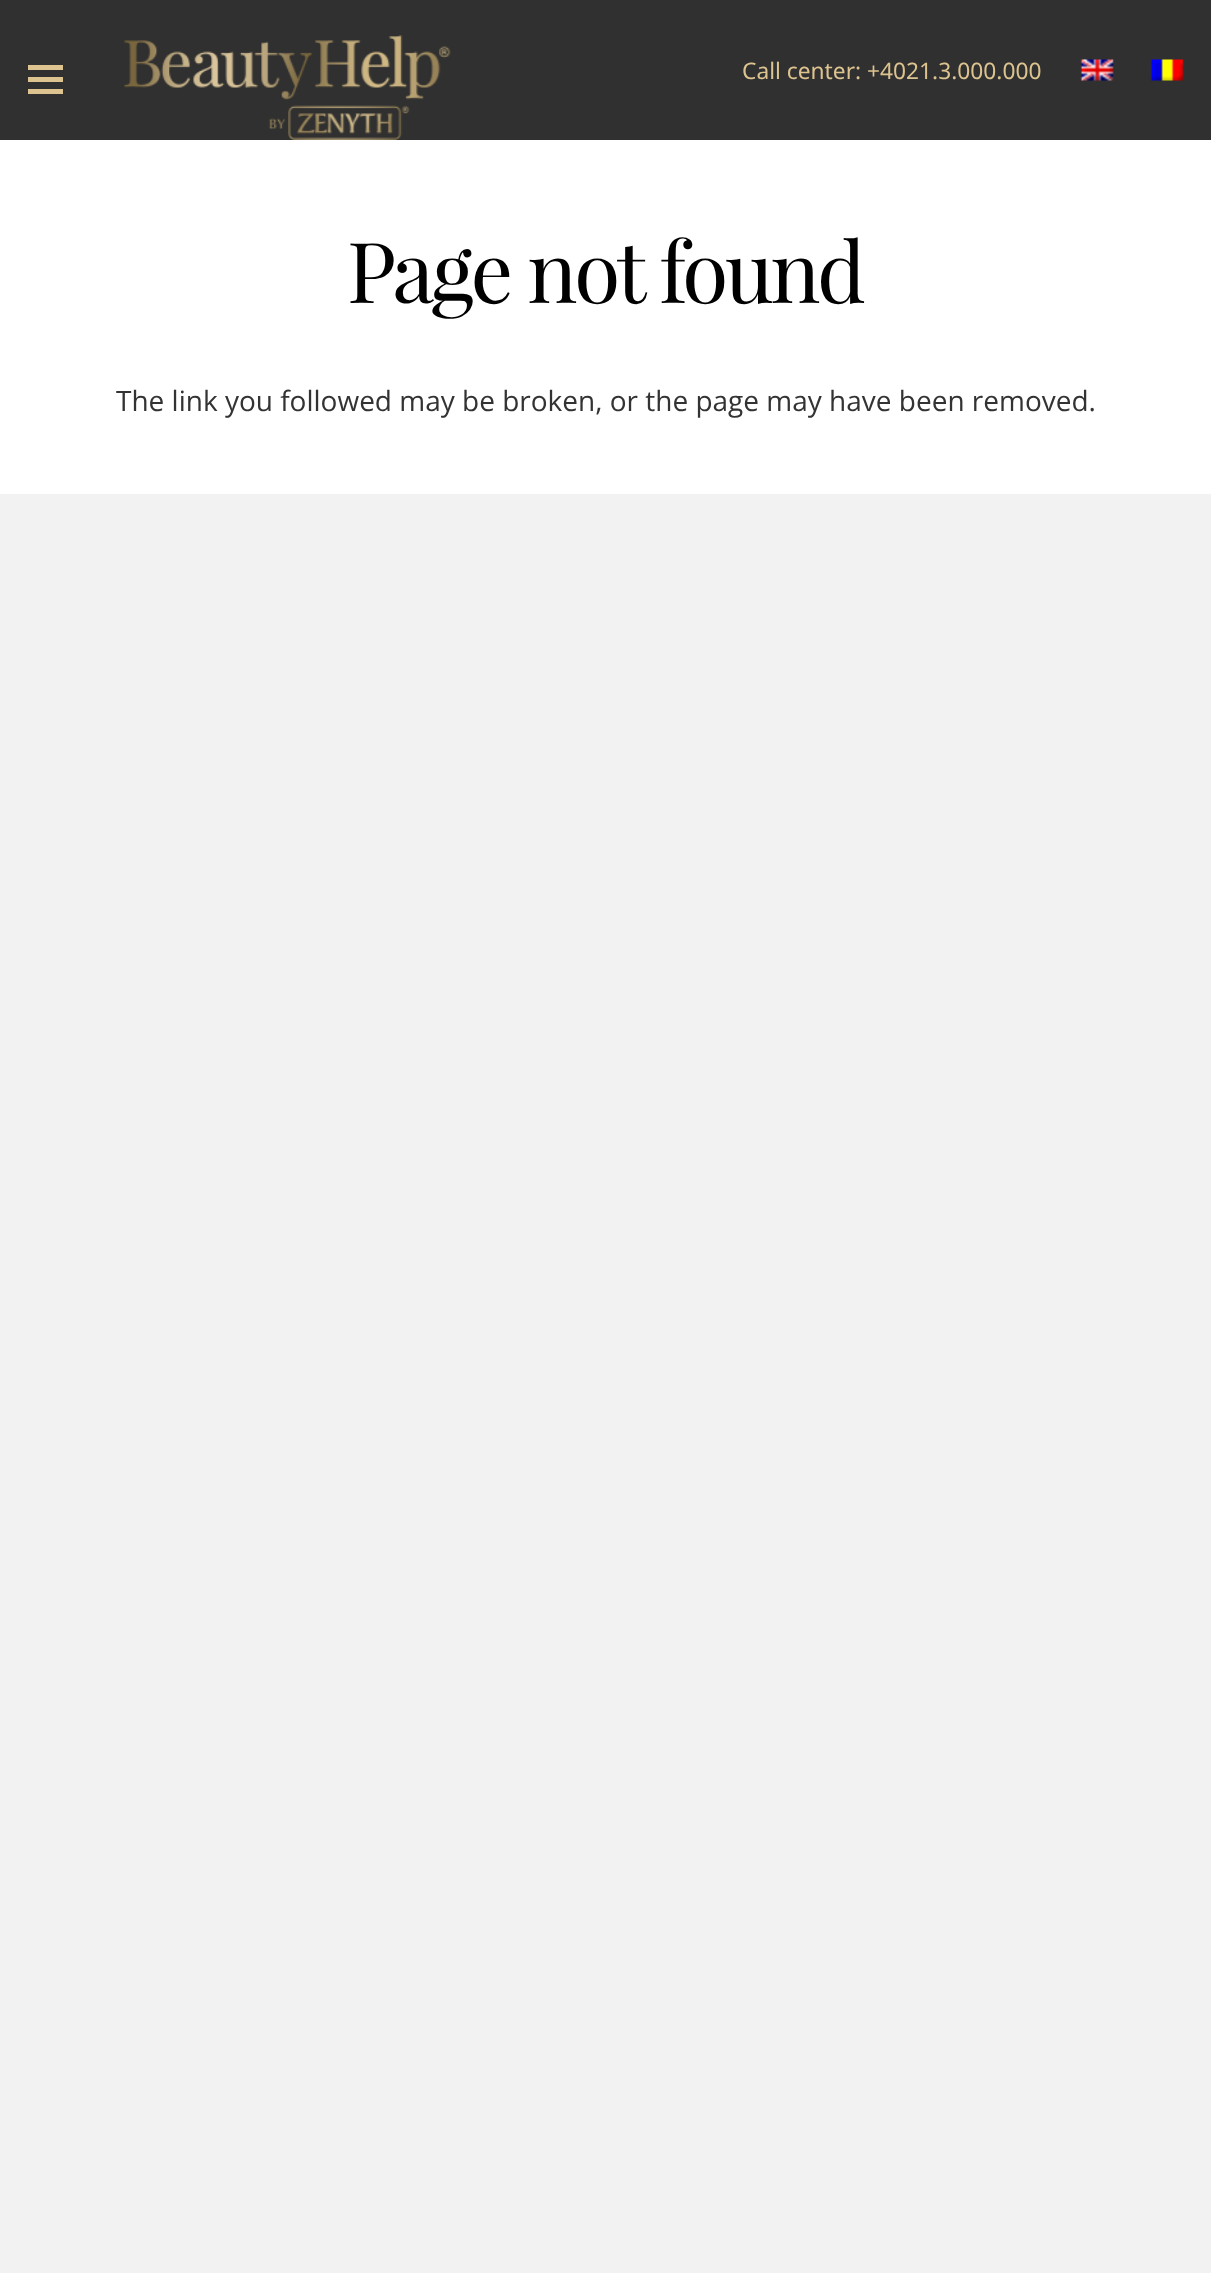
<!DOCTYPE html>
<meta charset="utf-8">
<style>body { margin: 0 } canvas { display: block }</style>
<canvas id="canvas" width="1211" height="2273"></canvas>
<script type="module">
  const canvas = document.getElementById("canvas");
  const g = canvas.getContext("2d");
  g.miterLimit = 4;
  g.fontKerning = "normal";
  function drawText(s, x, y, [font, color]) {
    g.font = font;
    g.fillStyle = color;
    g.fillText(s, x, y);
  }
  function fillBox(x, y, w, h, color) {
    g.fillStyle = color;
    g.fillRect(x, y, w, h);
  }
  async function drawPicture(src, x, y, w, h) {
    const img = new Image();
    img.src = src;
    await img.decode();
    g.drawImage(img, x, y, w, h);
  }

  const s1 = ["22.75px Noto Sans", "#DDC38F"];
  const s2 = ["84px Playfair Display", "#000000"];
  const s3 = ["28px Open Sans", "#333333"];

  fillBox(0, 0, 1211, 2273, "#F2F2F2");
  fillBox(0, 140, 1211, 354, "#FFFFFF");
  fillBox(0, 0, 1211, 140, "#303030");
  fillBox(28, 77, 35, 5, "#DDC38F");
  fillBox(28, 65, 35, 5, "#DDC38F");
  fillBox(28, 89, 35, 5, "#DDC38F");
  await drawPicture("pic1.png", 124, 35, 327, 105);
  drawText("Call center: +4021.3.000.000", 742, 79, s1);
  await drawPicture("pic2.png", 1080, 59, 34, 22);
  await drawPicture("pic3.png", 1150, 59, 34, 22);
  g.letterSpacing = "-3.4px";
  drawText("Page not found", 347, 303, s2);
  g.letterSpacing = "0px";
  drawText("The link you followed may be broken, or the page may have been removed.", 116, 411, s3);
</script>
